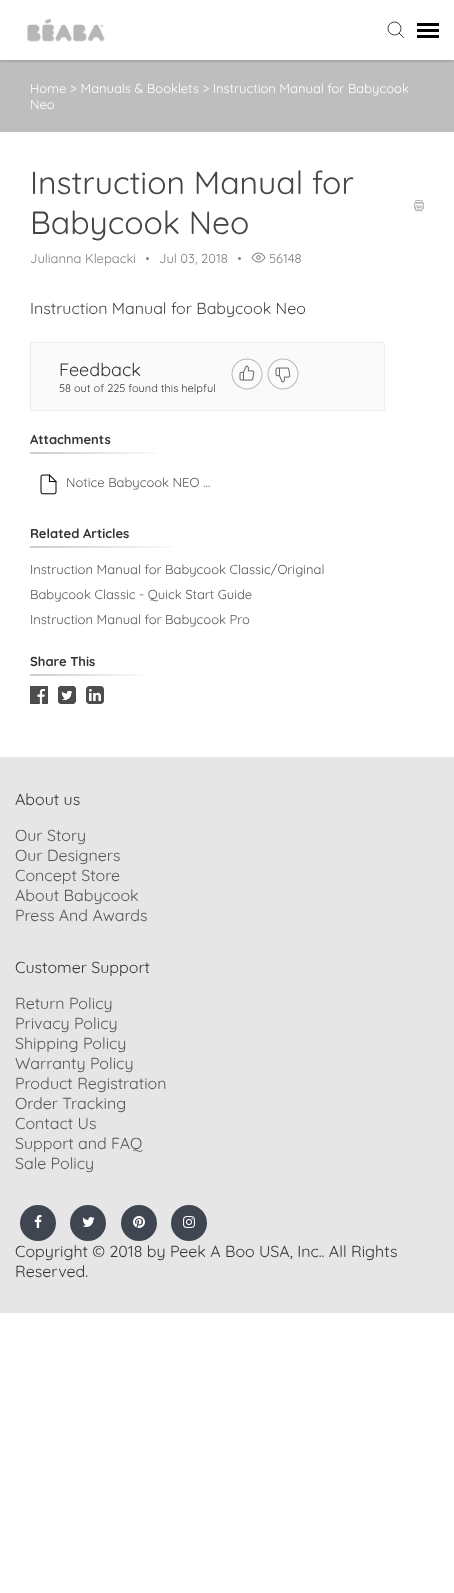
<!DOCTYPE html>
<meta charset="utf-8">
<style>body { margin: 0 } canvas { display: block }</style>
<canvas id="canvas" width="454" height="1593"></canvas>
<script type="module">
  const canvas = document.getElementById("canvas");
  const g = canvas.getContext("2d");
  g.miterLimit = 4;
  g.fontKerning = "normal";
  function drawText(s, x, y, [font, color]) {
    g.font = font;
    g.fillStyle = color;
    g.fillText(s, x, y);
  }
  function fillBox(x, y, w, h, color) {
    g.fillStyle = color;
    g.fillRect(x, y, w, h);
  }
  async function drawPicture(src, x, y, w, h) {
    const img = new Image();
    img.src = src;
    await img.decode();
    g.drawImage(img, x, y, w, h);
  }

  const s1 = ["13px Quicksand", "#FFFFFF"];
  const s2 = ["32px Quicksand", "#454545"];
  const s3 = ["13px Quicksand", "#808080"];
  const s4 = ["16px Quicksand", "#454545"];
  const s5 = ["18px Quicksand", "#333333"];
  const s6 = ["11px Quicksand", "#333333"];
  const s7 = ["bold 13px Quicksand", "#333333"];
  const s8 = ["13px Quicksand", "#575757"];
  const s9 = ["16px Quicksand", "#333333"];
  const s10 = ["16px Quicksand", "#575757"];

  fillBox(0, 0, 454, 1593, "#FFFFFF");
  fillBox(0, 60, 454, 72, "#BEBEBE");
  g.save();
  g.beginPath();
  g.rect(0, 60, 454, 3);
  g.clip();
  g.fillStyle = "rgba(0, 0, 0, 0.2)";
  g.filter = "blur(1.5px)";
  g.beginPath();
  g.rect(0, 1, 454, 60);
  g.fill();
  g.filter = "none";
  g.restore();
  await drawPicture("pic1.png", 27, 18, 78, 24);
  g.beginPath();
  g.arc(394.5, 28.5, 6.5, 0, Math.PI * 2);
  g.strokeStyle = "#424242";
  g.stroke();
  g.beginPath();
  g.moveTo(399.5, 33.5);
  g.lineTo(403.5, 37.5);
  g.lineCap = "square";
  g.stroke();
  fillBox(417, 23, 22, 3, "#000000");
  fillBox(417, 29, 22, 3, "#000000");
  fillBox(417, 35, 22, 3, "#000000");
  drawText("Home > Manuals & Booklets > Instruction Manual for Babycook", 30, 93, s1);
  drawText("Neo", 30, 109, s1);
  drawText("Instruction Manual for", 30, 194, s2);
  drawText("Babycook Neo", 30, 234, s2);
  await drawPicture("pic2.png", 414, 200, 10, 12);
  drawText("Julianna Klepacki", 30, 263, s3);
  g.beginPath();
  g.arc(147.5, 258.5, 1.5, 0, Math.PI * 2);
  g.fill();
  drawText("Jul 03, 2018", 159, 263, s3);
  g.beginPath();
  g.arc(239.5, 258.5, 1.5, 0, Math.PI * 2);
  g.fill();
  await drawPicture("pic3.png", 251, 252, 15, 11);
  drawText("56148", 269, 263, s3);
  drawText("Instruction Manual for Babycook Neo", 30, 314, s4);
  g.fillStyle = "#FAFAFA";
  g.beginPath();
  g.roundRect(30.5, 342.5, 354, 68, 1.5);
  g.fill();
  g.strokeStyle = "#ECECEC";
  g.stroke();
  drawText("Feedback", 59, 376, s5);
  drawText("58 out of 225 found this helpful", 59, 392, s6);
  await drawPicture("pic4.png", 231, 358, 32, 32);
  await drawPicture("pic5.png", 267, 358, 32, 32);
  await drawPicture("pic6.png", 30, 452, 126, 2);
  drawText("Attachments", 30, 444, s7);
  await drawPicture("pic7.png", 40, 474, 17, 21);
  drawText("Notice Babycook NEO …", 66, 487, s8);
  await drawPicture("pic8.png", 30, 546, 142, 2);
  drawText("Related Articles", 30, 538, s7);
  drawText("Instruction Manual for Babycook Classic/Original", 30, 574, s8);
  drawText("Babycook Classic - Quick Start Guide", 30, 599, s8);
  drawText("Instruction Manual for Babycook Pro", 30, 624, s8);
  await drawPicture("pic9.png", 30, 674, 112, 2);
  drawText("Share This", 30, 666, s7);
  await drawPicture("pic10.png", 30, 686, 18, 18);
  await drawPicture("pic11.png", 58, 686, 18, 18);
  await drawPicture("pic12.png", 86, 686, 18, 18);
  fillBox(0, 757, 454, 556, "#E6E6E6");
  drawText("About us", 15, 805, s9);
  drawText("Our Story", 15, 841, s10);
  drawText("Our Designers", 15, 861, s10);
  drawText("Concept Store", 15, 881, s10);
  drawText("About Babycook", 15, 901, s10);
  drawText("Press And Awards", 15, 921, s10);
  drawText("Customer Support", 15, 973, s9);
  drawText("Return Policy", 15, 1009, s10);
  drawText("Privacy Policy", 15, 1029, s10);
  drawText("Shipping Policy", 15, 1049, s10);
  drawText("Warranty Policy", 15, 1069, s10);
  drawText("Product Registration", 15, 1089, s10);
  drawText("Order Tracking", 15, 1109, s10);
  drawText("Contact Us", 15, 1129, s10);
  drawText("Support and FAQ", 15, 1149, s10);
  drawText("Sale Policy", 15, 1169, s10);
  g.fillStyle = "#404552";
  g.beginPath();
  g.arc(38, 1223, 18, 0, Math.PI * 2);
  g.fill();
  await drawPicture("pic13.png", 34, 1215, 8, 13);
  g.beginPath();
  g.arc(88, 1223, 18, 0, Math.PI * 2);
  g.fill();
  await drawPicture("pic14.png", 82, 1217, 13, 10);
  g.beginPath();
  g.arc(139, 1223, 18, 0, Math.PI * 2);
  g.fill();
  await drawPicture("pic15.png", 133, 1216, 12, 12);
  g.beginPath();
  g.arc(189, 1223, 18, 0, Math.PI * 2);
  g.fill();
  await drawPicture("pic16.png", 183, 1216, 12, 12);
  drawText("Copyright © 2018 by Peek A Boo USA, Inc.. All Rights", 15, 1257, s9);
  drawText("Reserved.", 15, 1277, s9);
</script>
